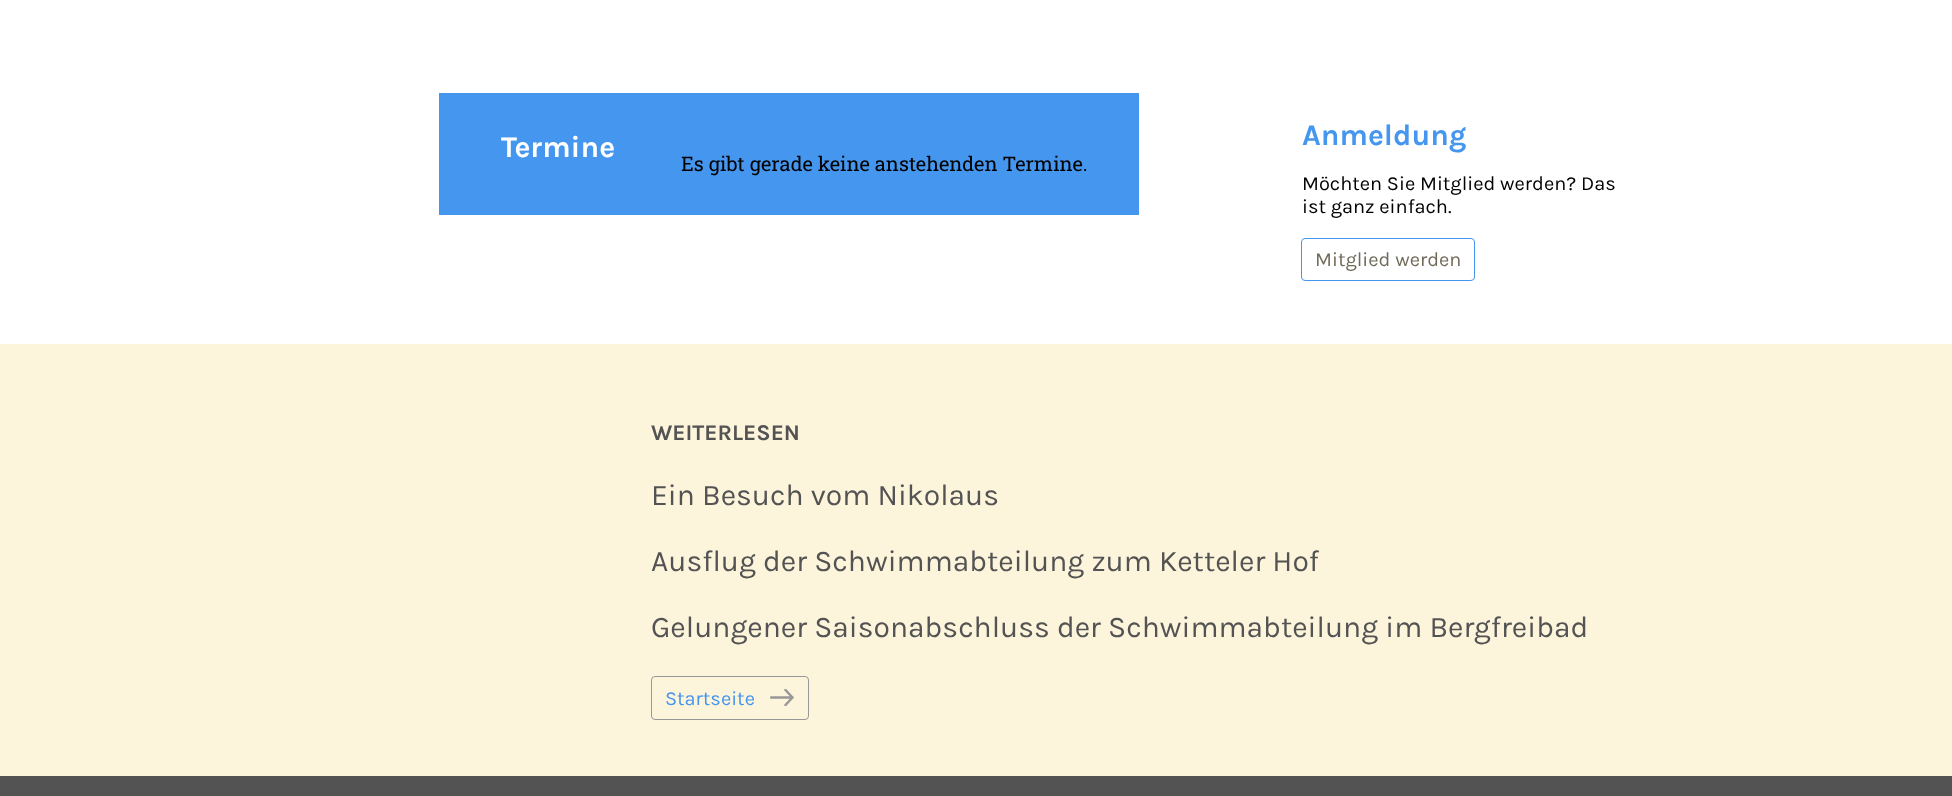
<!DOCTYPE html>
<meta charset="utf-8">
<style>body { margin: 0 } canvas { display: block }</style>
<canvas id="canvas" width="1952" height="796"></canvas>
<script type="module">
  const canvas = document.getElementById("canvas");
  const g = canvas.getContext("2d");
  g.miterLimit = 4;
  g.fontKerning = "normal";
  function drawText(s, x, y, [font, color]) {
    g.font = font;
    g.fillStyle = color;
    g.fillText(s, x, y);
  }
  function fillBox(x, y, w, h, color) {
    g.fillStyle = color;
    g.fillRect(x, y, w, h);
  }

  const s1 = ["bold 30px Karla", "#FFFFFF"];
  const s2 = ["20px Roboto Slab", "#000000"];
  const s3 = ["bold 30px Karla", "#4596EE"];
  const s4 = ["20px Karla", "#000000"];
  const s5 = ["20px Karla", "#706A59"];
  const s6 = ["bold 22.5px Karla", "#535353"];
  const s7 = ["30px Karla", "#535353"];
  const s8 = ["20px Karla", "#4596EE"];

  fillBox(0, 0, 1952, 796, "#FFFFFF");
  fillBox(439, 93, 700, 122, "#4596EE");
  drawText("Termine", 501, 157, s1);
  drawText("Es gibt gerade keine anstehenden Termine.", 681, 171, s2);
  drawText("Anmeldung", 1302, 145, s3);
  drawText("Möchten Sie Mitglied werden? Das", 1302, 190, s4);
  drawText("ist ganz einfach.", 1302, 213, s4);
  g.beginPath();
  g.roundRect(1301.5, 238.5, 173, 42, 3.5);
  g.strokeStyle = "#4596EE";
  g.stroke();
  drawText("Mitglied werden", 1315, 266, s5);
  fillBox(0, 344, 1952, 432, "#FCF4DB");
  drawText("WEITERLESEN", 651, 440, s6);
  drawText("Ein Besuch vom Nikolaus", 651, 505, s7);
  drawText("Ausflug der Schwimmabteilung zum Ketteler Hof", 651, 571, s7);
  drawText("Gelungener Saisonabschluss der Schwimmabteilung im Bergfreibad", 651, 637, s7);
  g.save();
  g.beginPath();
  g.rect(770, 689, 24, 17);
  g.clip();
  g.beginPath();
  g.moveTo(792.5, 697.5);
  g.lineTo(785.5, 690);
  g.moveTo(785.5, 705);
  g.lineTo(792.5, 697.5);
  g.moveTo(792.5, 697.5);
  g.lineTo(771, 697.5);
  g.strokeStyle = "#989898";
  g.lineWidth = 2.5;
  g.lineCap = "round";
  g.lineJoin = "round";
  g.stroke();
  g.restore();
  g.beginPath();
  g.roundRect(651.5, 676.5, 157, 43, 3.5);
  g.strokeStyle = "#989898";
  g.stroke();
  drawText("Startseite", 665, 705, s8);
  fillBox(0, 776, 1952, 20, "#535353");
</script>
